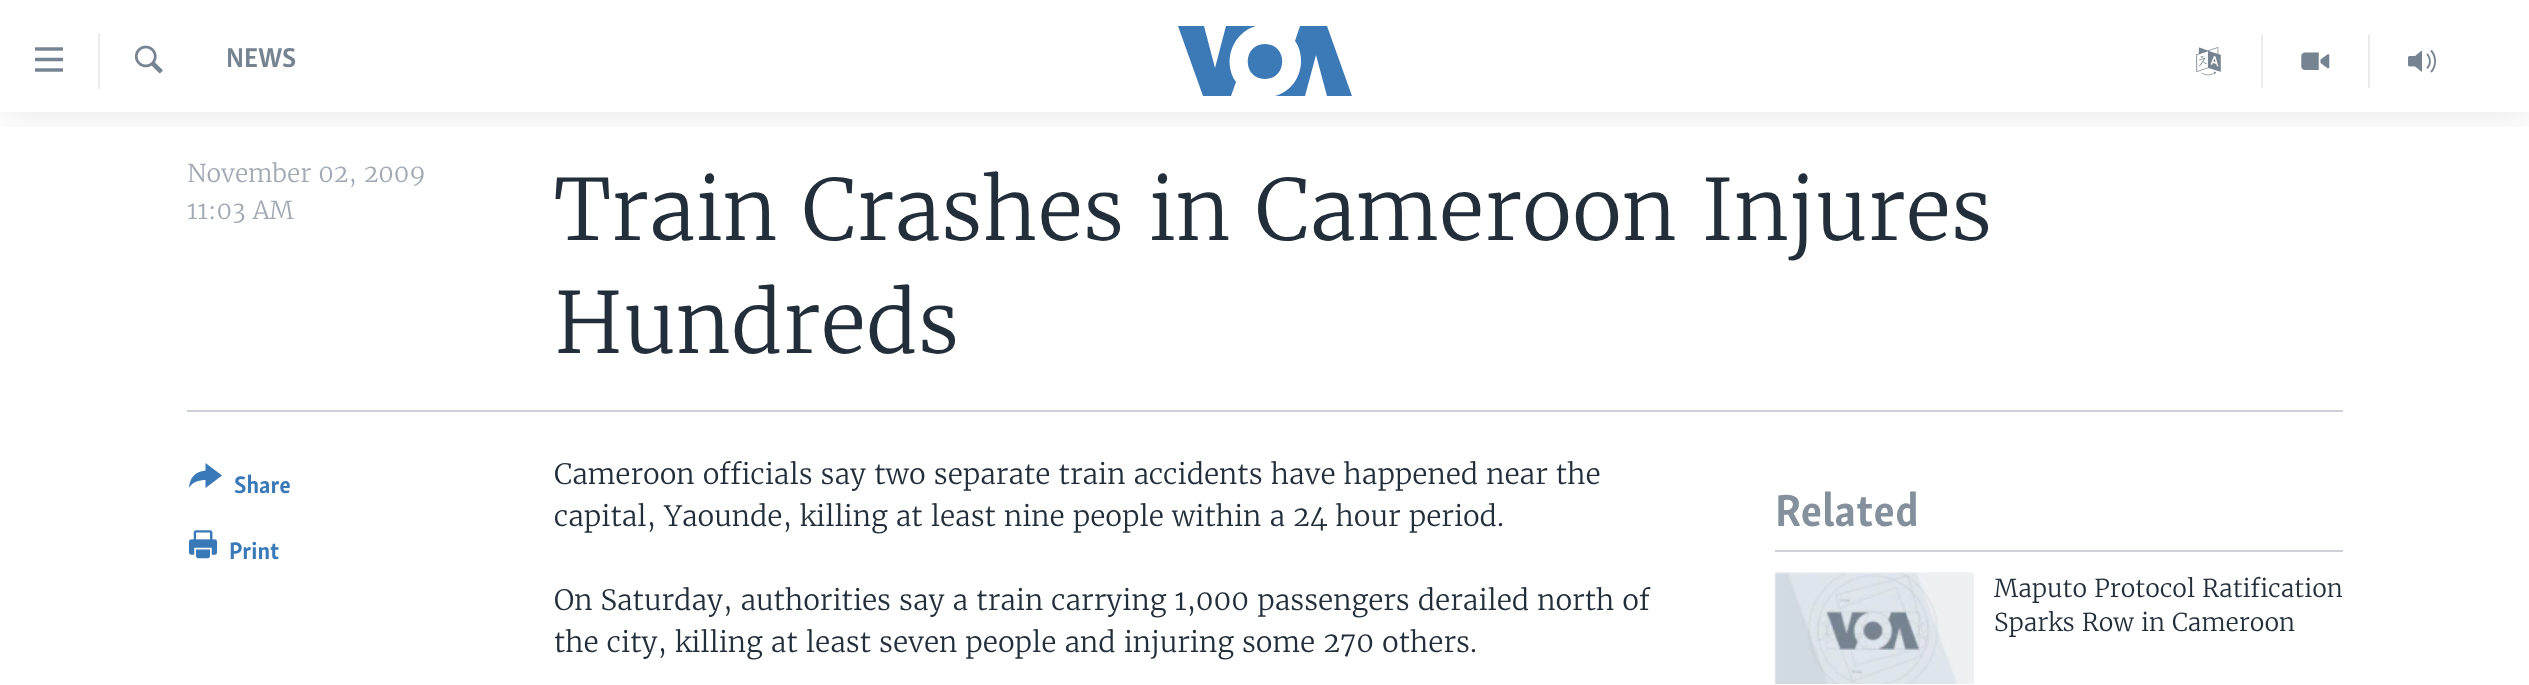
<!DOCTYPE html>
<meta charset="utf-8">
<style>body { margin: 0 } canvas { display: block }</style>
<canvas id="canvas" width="2529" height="685"></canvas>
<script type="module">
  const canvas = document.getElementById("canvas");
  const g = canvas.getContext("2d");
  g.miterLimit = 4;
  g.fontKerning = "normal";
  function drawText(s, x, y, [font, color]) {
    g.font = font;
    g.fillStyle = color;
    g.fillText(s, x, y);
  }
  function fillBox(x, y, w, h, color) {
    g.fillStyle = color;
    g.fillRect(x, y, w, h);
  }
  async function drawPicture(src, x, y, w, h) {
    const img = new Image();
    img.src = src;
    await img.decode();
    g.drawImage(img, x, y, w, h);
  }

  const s1 = ["bold 28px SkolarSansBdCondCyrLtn", "#768492"];
  const s2 = ["300 24.5px Merriweather", "#A1AAB4"];
  const s3 = ["300 84px Merriweather", "#222F3A"];
  const s4 = ["bold 24.5px SkolarSansBdCondCyrLtn", "#3A79B7"];
  const s5 = ["300 28px Merriweather", "#222F3A"];
  const s6 = ["bold 46px SkolarSansBdCondCyrLtn", "#84919D"];
  const s7 = ["300 24.5px Merriweather", "#222F3A"];

  fillBox(0, 0, 2529, 685, "#FFFFFF");
  g.save();
  g.beginPath();
  g.rect(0, 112, 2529, 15);
  g.clip();
  g.fillStyle = "rgba(0, 0, 0, 0.1)";
  g.filter = "blur(17.5px)";
  g.beginPath();
  g.rect(0, 0, 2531, 112);
  g.fill();
  g.filter = "none";
  g.restore();
  await drawPicture("pic1.png", 35, 47, 28, 25);
  fillBox(98, 33, 2, 56, "#EBEBEB");
  await drawPicture("pic2.png", 134, 45, 29, 29);
  drawText("NEWS", 226, 67, s1);
  g.fillStyle = "#3B79B7";
  g.beginPath();
  g.moveTo(1236, 82);
  g.lineTo(1231, 96);
  g.lineTo(1203, 96);
  g.lineTo(1178, 26);
  g.lineTo(1204, 26);
  g.lineTo(1215, 68);
  g.lineTo(1226, 26);
  g.lineTo(1256, 26);
  g.bezierCurveTo(1232, 33, 1222, 62, 1236, 82);
  g.closePath();
  g.moveTo(1265, 44);
  g.bezierCurveTo(1242, 44, 1242, 79, 1265, 79);
  g.bezierCurveTo(1288, 79, 1288, 44, 1265, 44);
  g.closePath();
  g.moveTo(1301, 61);
  g.bezierCurveTo(1301, 78, 1290, 92, 1275, 96);
  g.lineTo(1305, 96);
  g.lineTo(1316, 55);
  g.lineTo(1327, 96);
  g.lineTo(1352, 96);
  g.lineTo(1327, 26);
  g.lineTo(1300, 26);
  g.lineTo(1295, 41);
  g.bezierCurveTo(1299, 46, 1301, 54, 1301, 61);
  g.closePath();
  g.fill();
  fillBox(2261, 35, 2, 53, "#EBEBEB");
  await drawPicture("pic3.png", 2196, 47, 25, 29);
  fillBox(2368, 35, 2, 53, "#EBEBEB");
  await drawPicture("pic4.png", 2301, 52, 29, 18);
  await drawPicture("pic5.png", 2408, 49, 28, 24);
  drawText("November 02, 2009", 187, 182, s2);
  drawText("11:03 AM", 187, 219, s2);
  drawText("Train Crashes in Cameroon Injures", 554, 240, s3);
  drawText("Hundreds", 554, 353, s3);
  fillBox(187, 410, 2156, 2, "#CBD1D6");
  g.fillStyle = "#3A79B7";
  g.beginPath();
  g.moveTo(189, 488);
  g.bezierCurveTo(189.5, 478, 195, 471.5, 205.5, 470.5);
  g.lineTo(205.5, 463);
  g.lineTo(222, 475.5);
  g.lineTo(205.5, 488);
  g.lineTo(205.5, 480);
  g.bezierCurveTo(199.5, 480, 192, 482, 189, 488);
  g.closePath();
  g.fill();
  drawText("Share", 234, 493, s4);
  await drawPicture("pic6.png", 189, 530, 28, 29);
  drawText("Print", 229, 559, s4);
  drawText("Cameroon officials say two separate train accidents have happened near the", 554, 484, s5);
  drawText("capital, Yaounde, killing at least nine people within a 24 hour period.", 554, 526, s5);
  drawText("On Saturday, authorities say a train carrying 1,000 passengers derailed north of", 554, 610, s5);
  drawText("the city, killing at least seven people and injuring some 270 others.", 554, 652, s5);
  fillBox(1775, 550, 568, 2, "#CBD1D6");
  drawText("Related", 1775, 526, s6);
  fillBox(1775, 572, 199, 112, "#F6F7F8");
  await drawPicture("pic7.png", 1774, 572, 200, 112);
  drawText("Maputo Protocol Ratification", 1994, 597, s7);
  drawText("Sparks Row in Cameroon", 1994, 631, s7);
</script>
